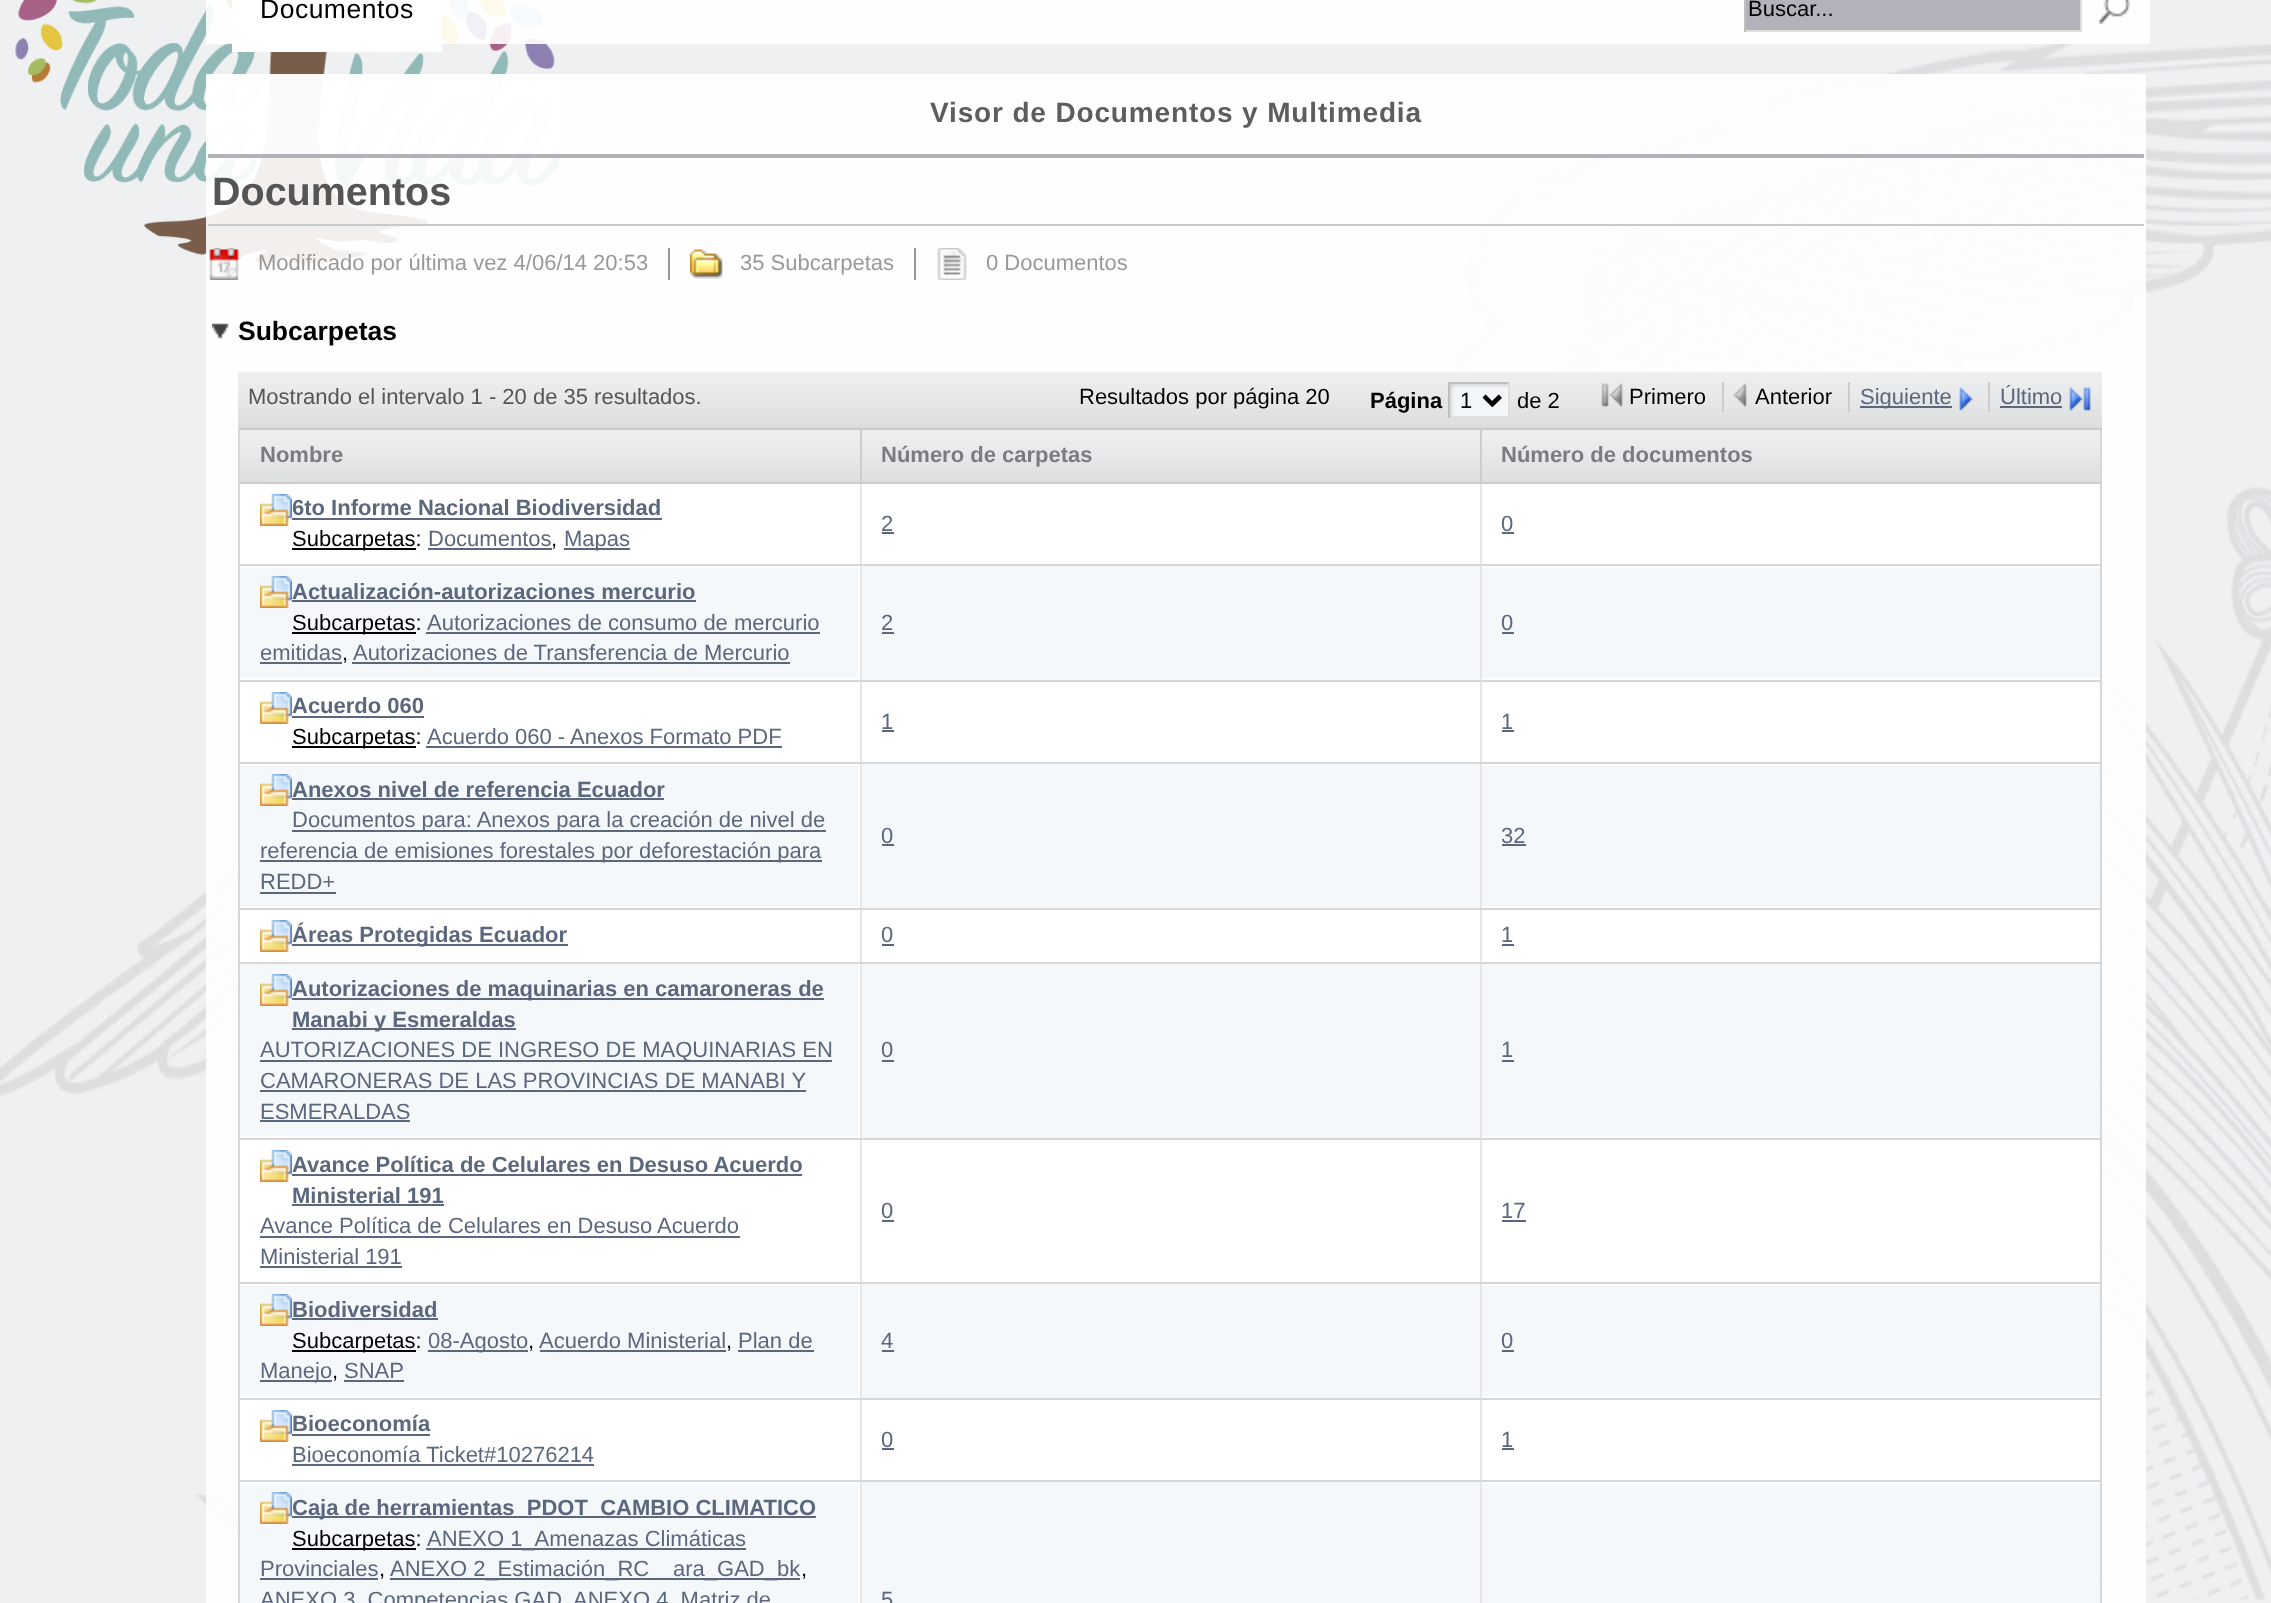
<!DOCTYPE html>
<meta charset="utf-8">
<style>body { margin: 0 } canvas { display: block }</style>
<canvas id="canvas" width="2271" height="1603"></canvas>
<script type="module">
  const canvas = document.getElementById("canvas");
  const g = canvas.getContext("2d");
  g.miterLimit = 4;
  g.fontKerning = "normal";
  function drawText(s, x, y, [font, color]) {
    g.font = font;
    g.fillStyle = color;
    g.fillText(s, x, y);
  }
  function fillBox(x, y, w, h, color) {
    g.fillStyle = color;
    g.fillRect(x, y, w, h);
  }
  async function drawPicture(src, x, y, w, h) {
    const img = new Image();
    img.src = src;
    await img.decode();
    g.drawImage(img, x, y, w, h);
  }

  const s1 = ["26.5px Liberation Sans", "#000000"];
  const s2 = ["22px Liberation Sans", "#000000"];
  const s3 = ["bold 28px Liberation Sans", "#5D5D5D"];
  const s4 = ["bold 39.5px Liberation Sans", "#555555"];
  const s5 = ["22px Liberation Sans", "#999999"];
  const s6 = ["bold 26.5px Liberation Sans", "#000000"];
  const s7 = ["22px Liberation Sans", "#555555"];
  const s8 = ["bold 22px Liberation Sans", "#000000"];
  const s9 = ["22px Liberation Sans", "#5B677D"];
  const s10 = ["bold 22px Liberation Sans", "#7B7C7F"];
  const s11 = ["bold 22px Liberation Sans", "#5B677D"];

  fillBox(0, 0, 2271, 1603, "#EEF0F2");
  await drawPicture("pic1.png", 0, 40, 2271, 1560);
  await drawPicture("pic2.png", 15, 0, 546, 265);
  fillBox(206, 0, 1944, 44, "rgba(255, 255, 255, 0.9)");
  fillBox(232, 0, 210, 52, "#FFFFFF");
  g.letterSpacing = "0.5px";
  drawText("Documentos", 260, 18, s1);
  fillBox(1746, 0, 334, 30, "#B2B2BB");
  fillBox(2080, 0, 2, 32, "#DEDEDE");
  fillBox(1744, 30, 338, 2, "#DEDEDE");
  fillBox(1744, 0, 2, 32, "#BFBFBF");
  g.letterSpacing = "0px";
  drawText("Buscar...", 1748, 16, s2);
  await drawPicture("pic3.png", 2098, 0, 32, 24);
  fillBox(206, 74, 1940, 1529, "rgba(255, 255, 255, 0.9)");
  fillBox(208, 74, 353, 80, "rgba(255, 255, 255, 0.7)");
  fillBox(208, 154, 1936, 4, "#B2B2BB");
  g.letterSpacing = "0.85px";
  drawText("Visor de Documentos y Multimedia", 930, 122, s3);
  fillBox(208, 224, 1936, 2, "#C8C9CA");
  g.letterSpacing = "0px";
  drawText("Documentos", 212, 205, s4);
  await drawPicture("pic4.png", 209, 248, 30, 32);
  fillBox(668, 248, 2, 32, "#999999");
  drawText("Modificado por última vez 4/06/14 20:53", 258, 270, s5);
  await drawPicture("pic5.png", 690, 249, 33, 30);
  fillBox(914, 248, 2, 32, "#999999");
  drawText("35 Subcarpetas", 740, 270, s5);
  await drawPicture("pic6.png", 937, 248, 30, 32);
  drawText("0 Documentos", 986, 270, s5);
  await drawPicture("pic7.png", 212, 323, 17, 16);
  drawText("Subcarpetas", 238, 340, s6);
  fillBox(238, 427, 1864, 1, "#D9D9D9");
  await drawPicture("pic8.png", 238, 372, 1864, 55);
  drawText("Mostrando el intervalo 1 - 20 de 35 resultados.", 248, 404, s7);
  drawText("Resultados por página 20", 1079, 404, s2);
  drawText("Página", 1370, 408, s8);
  await drawPicture("pic9.png", 1450, 384, 58, 32);
  fillBox(1448, 382, 62, 2, "#BFBFBF");
  fillBox(1508, 382, 2, 36, "#DEDEDE");
  fillBox(1448, 416, 62, 2, "#DEDEDE");
  fillBox(1448, 382, 2, 36, "#BFBFBF");
  g.beginPath();
  g.moveTo(1484.5, 396.5);
  g.lineTo(1492.5, 404.5);
  g.lineTo(1500.5, 396.5);
  g.strokeStyle = "#000000";
  g.lineWidth = 4;
  g.stroke();
  drawText("1", 1460, 408, s2);
  drawText("de 2", 1517, 408, s2);
  await drawPicture("pic10.png", 1601, 383, 22, 24);
  drawText("Primero", 1629, 404, s2);
  await drawPicture("pic11.png", 1733, 383, 14, 24);
  fillBox(1722, 382, 2, 30, "#CCCCCC");
  drawText("Anterior", 1755, 404, s2);
  await drawPicture("pic12.png", 1959, 387, 14, 24);
  fillBox(1848, 382, 2, 30, "#CCCCCC");
  fillBox(1860, 406, 92, 2, "#5B677D");
  drawText("Siguiente", 1860, 404, s9);
  await drawPicture("pic13.png", 2069, 387, 22, 24);
  fillBox(1988, 382, 2, 30, "#CCCCCC");
  drawText("Último", 2000, 404, s9);
  fillBox(2000, 406, 62, 2, "#5B677D");
  fillBox(240, 484, 1860, 1115, "#FFFFFF");
  fillBox(2100, 428, 2, 1175, "#D7D7D7");
  fillBox(238, 428, 2, 1175, "#D7D7D7");
  await drawPicture("pic14.png", 240, 430, 620, 52);
  fillBox(1480, 428, 622, 2, "#CCCCCC");
  fillBox(1480, 1480, 2, 123, "#E7E7E7");
  fillBox(1480, 1480, 622, 2, "#D7D7D7");
  fillBox(1480, 1398, 2, 84, "#E7E7E7");
  fillBox(1480, 1398, 622, 2, "#D7D7D7");
  fillBox(1480, 1282, 2, 118, "#E7E7E7");
  fillBox(1480, 1282, 622, 2, "#D7D7D7");
  fillBox(1480, 1138, 2, 146, "#E7E7E7");
  fillBox(1480, 1138, 622, 2, "#D7D7D7");
  fillBox(1480, 962, 2, 178, "#E7E7E7");
  fillBox(1480, 962, 622, 2, "#D7D7D7");
  fillBox(1480, 908, 2, 56, "#E7E7E7");
  fillBox(1480, 908, 622, 2, "#D7D7D7");
  fillBox(1480, 762, 2, 148, "#E7E7E7");
  fillBox(1480, 762, 622, 2, "#D7D7D7");
  fillBox(1480, 680, 2, 84, "#E7E7E7");
  fillBox(1480, 680, 622, 2, "#D7D7D7");
  fillBox(1480, 564, 2, 118, "#E7E7E7");
  fillBox(1480, 564, 622, 2, "#D7D7D7");
  fillBox(1480, 482, 2, 84, "#E7E7E7");
  fillBox(1480, 482, 622, 2, "#CCCCCC");
  fillBox(1480, 428, 2, 56, "#CCCCCC");
  fillBox(860, 428, 622, 2, "#CCCCCC");
  fillBox(860, 1480, 2, 123, "#E7E7E7");
  fillBox(860, 1480, 622, 2, "#D7D7D7");
  fillBox(860, 1398, 2, 84, "#E7E7E7");
  fillBox(860, 1398, 622, 2, "#D7D7D7");
  fillBox(860, 1282, 2, 118, "#E7E7E7");
  fillBox(860, 1282, 622, 2, "#D7D7D7");
  fillBox(860, 1138, 2, 146, "#E7E7E7");
  fillBox(860, 1138, 622, 2, "#D7D7D7");
  fillBox(860, 962, 2, 178, "#E7E7E7");
  fillBox(860, 962, 622, 2, "#D7D7D7");
  fillBox(860, 908, 2, 56, "#E7E7E7");
  fillBox(860, 908, 622, 2, "#D7D7D7");
  fillBox(860, 762, 2, 148, "#E7E7E7");
  fillBox(860, 762, 622, 2, "#D7D7D7");
  fillBox(860, 680, 2, 84, "#E7E7E7");
  fillBox(860, 680, 622, 2, "#D7D7D7");
  fillBox(860, 564, 2, 118, "#E7E7E7");
  fillBox(860, 564, 622, 2, "#D7D7D7");
  fillBox(860, 482, 2, 84, "#E7E7E7");
  fillBox(860, 482, 622, 2, "#CCCCCC");
  fillBox(860, 428, 2, 56, "#CCCCCC");
  fillBox(240, 428, 622, 2, "#CCCCCC");
  fillBox(240, 482, 622, 2, "#CCCCCC");
  drawText("Nombre", 260, 462, s10);
  await drawPicture("pic15.png", 862, 430, 618, 52);
  drawText("Número de carpetas", 881, 462, s10);
  await drawPicture("pic15.png", 1482, 430, 618, 52);
  drawText("Número de documentos", 1501, 462, s10);
  fillBox(240, 564, 622, 2, "#D7D7D7");
  await drawPicture("pic16.png", 260, 494, 32, 32);
  drawText("6to Informe Nacional Biodiversidad", 292, 515, s11);
  fillBox(292, 518, 370, 2, "#5B677D");
  fillBox(292, 548, 124, 2, "#000000");
  drawText("Subcarpetas:", 292, 546, s2);
  drawText("Documentos", 428, 546, s9);
  fillBox(428, 548, 124, 2, "#5B677D");
  drawText(",", 551, 546, s2);
  fillBox(564, 548, 66, 2, "#5B677D");
  drawText("Mapas", 564, 546, s9);
  drawText("2", 881, 531, s9);
  fillBox(882, 532, 12, 2, "#5B677D");
  drawText("0", 1501, 531, s9);
  fillBox(1502, 532, 12, 2, "#5B677D");
  fillBox(240, 568, 618, 110, "#F5F8FB");
  fillBox(240, 680, 622, 2, "#D7D7D7");
  await drawPicture("pic17.png", 260, 576, 32, 32);
  drawText("Actualización-autorizaciones mercurio", 292, 599, s11);
  fillBox(292, 600, 404, 2, "#5B677D");
  fillBox(292, 632, 124, 2, "#000000");
  drawText("Subcarpetas:", 292, 630, s2);
  drawText("Autorizaciones de consumo de mercurio", 427, 630, s9);
  fillBox(426, 632, 394, 2, "#5B677D");
  drawText("emitidas", 260, 660, s9);
  fillBox(260, 662, 82, 2, "#5B677D");
  drawText(",", 342, 660, s2);
  drawText("Autorizaciones de Transferencia de Mercurio", 353, 660, s9);
  fillBox(352, 662, 438, 2, "#5B677D");
  fillBox(862, 566, 618, 114, "#F5F8FB");
  drawText("2", 881, 630, s9);
  fillBox(882, 632, 12, 2, "#5B677D");
  fillBox(1482, 568, 618, 110, "#F5F8FB");
  drawText("0", 1501, 630, s9);
  fillBox(1502, 632, 12, 2, "#5B677D");
  fillBox(240, 762, 622, 2, "#D7D7D7");
  await drawPicture("pic16.png", 260, 692, 32, 32);
  drawText("Acuerdo 060", 292, 713, s11);
  fillBox(292, 716, 132, 2, "#5B677D");
  fillBox(292, 746, 124, 2, "#000000");
  drawText("Subcarpetas:", 292, 744, s2);
  drawText("Acuerdo 060 - Anexos Formato PDF", 427, 744, s9);
  fillBox(426, 746, 356, 2, "#5B677D");
  drawText("1", 881, 729, s9);
  fillBox(882, 730, 12, 2, "#5B677D");
  drawText("1", 1501, 729, s9);
  fillBox(1502, 730, 12, 2, "#5B677D");
  fillBox(240, 766, 618, 140, "#F5F8FB");
  fillBox(240, 908, 622, 2, "#D7D7D7");
  await drawPicture("pic17.png", 260, 774, 32, 32);
  drawText("Anexos nivel de referencia Ecuador", 292, 797, s11);
  fillBox(292, 798, 372, 2, "#5B677D");
  fillBox(292, 830, 534, 2, "#5B677D");
  drawText("Documentos para: Anexos para la creación de nivel de", 292, 827, s9);
  fillBox(260, 860, 562, 2, "#5B677D");
  drawText("referencia de emisiones forestales por deforestación para", 260, 858, s9);
  drawText("REDD+", 260, 889, s9);
  fillBox(260, 892, 76, 2, "#5B677D");
  fillBox(862, 764, 618, 144, "#F5F8FB");
  drawText("0", 881, 843, s9);
  fillBox(882, 844, 12, 2, "#5B677D");
  fillBox(1482, 766, 618, 140, "#F5F8FB");
  drawText("32", 1501, 843, s9);
  fillBox(1502, 844, 24, 2, "#5B677D");
  fillBox(240, 962, 622, 2, "#D7D7D7");
  await drawPicture("pic16.png", 260, 920, 32, 32);
  fillBox(292, 944, 276, 2, "#5B677D");
  drawText("Áreas Protegidas Ecuador", 292, 942, s11);
  drawText("0", 881, 942, s9);
  fillBox(882, 944, 12, 2, "#5B677D");
  drawText("1", 1501, 942, s9);
  fillBox(1502, 944, 12, 2, "#5B677D");
  fillBox(240, 964, 618, 172, "#F5F8FB");
  fillBox(240, 1138, 622, 2, "#D7D7D7");
  await drawPicture("pic17.png", 260, 974, 32, 32);
  fillBox(292, 998, 532, 2, "#5B677D");
  drawText("Autorizaciones de maquinarias en camaroneras de", 292, 996, s11);
  fillBox(292, 1028, 224, 2, "#5B677D");
  drawText("Manabi y Esmeraldas", 292, 1027, s11);
  fillBox(260, 1060, 572, 2, "#5B677D");
  drawText("AUTORIZACIONES DE INGRESO DE MAQUINARIAS EN", 260, 1057, s9);
  drawText("CAMARONERAS DE LAS PROVINCIAS DE MANABI Y", 260, 1088, s9);
  fillBox(260, 1090, 546, 2, "#5B677D");
  drawText("ESMERALDAS", 260, 1119, s9);
  fillBox(260, 1120, 150, 2, "#5B677D");
  fillBox(862, 964, 618, 174, "#F5F8FB");
  drawText("0", 881, 1057, s9);
  fillBox(882, 1060, 12, 2, "#5B677D");
  fillBox(1482, 964, 618, 172, "#F5F8FB");
  drawText("1", 1501, 1057, s9);
  fillBox(1502, 1060, 12, 2, "#5B677D");
  fillBox(240, 1282, 622, 2, "#D7D7D7");
  await drawPicture("pic16.png", 260, 1150, 32, 32);
  drawText("Avance Política de Celulares en Desuso Acuerdo", 292, 1172, s11);
  fillBox(292, 1174, 510, 2, "#5B677D");
  drawText("Ministerial 191", 292, 1203, s11);
  fillBox(292, 1204, 152, 2, "#5B677D");
  drawText("Avance Política de Celulares en Desuso Acuerdo", 260, 1233, s9);
  fillBox(260, 1236, 480, 2, "#5B677D");
  drawText("Ministerial 191", 260, 1264, s9);
  fillBox(260, 1266, 142, 2, "#5B677D");
  drawText("0", 881, 1218, s9);
  fillBox(882, 1220, 12, 2, "#5B677D");
  drawText("17", 1501, 1218, s9);
  fillBox(1502, 1220, 24, 2, "#5B677D");
  fillBox(240, 1286, 618, 110, "#F5F8FB");
  fillBox(240, 1398, 622, 2, "#D7D7D7");
  await drawPicture("pic17.png", 260, 1294, 32, 32);
  drawText("Biodiversidad", 292, 1317, s11);
  fillBox(292, 1318, 146, 2, "#5B677D");
  fillBox(292, 1350, 124, 2, "#000000");
  drawText("Subcarpetas:", 292, 1348, s2);
  fillBox(428, 1350, 100, 2, "#5B677D");
  drawText("08-Agosto", 428, 1348, s9);
  drawText(",", 528, 1348, s2);
  drawText("Acuerdo Ministerial", 539, 1348, s9);
  fillBox(540, 1350, 186, 2, "#5B677D");
  drawText(",", 726, 1348, s2);
  drawText("Plan de", 738, 1348, s9);
  fillBox(738, 1350, 76, 2, "#5B677D");
  fillBox(260, 1380, 72, 2, "#5B677D");
  drawText("Manejo", 260, 1378, s9);
  drawText(",", 332, 1378, s2);
  drawText("SNAP", 344, 1378, s9);
  fillBox(344, 1380, 60, 2, "#5B677D");
  fillBox(862, 1284, 618, 114, "#F5F8FB");
  drawText("4", 881, 1348, s9);
  fillBox(882, 1350, 12, 2, "#5B677D");
  fillBox(1482, 1286, 618, 110, "#F5F8FB");
  drawText("0", 1501, 1348, s9);
  fillBox(1502, 1350, 12, 2, "#5B677D");
  fillBox(240, 1480, 622, 2, "#D7D7D7");
  await drawPicture("pic16.png", 260, 1410, 32, 32);
  drawText("Bioeconomía", 292, 1431, s11);
  fillBox(292, 1434, 138, 2, "#5B677D");
  drawText("Bioeconomía Ticket#10276214", 292, 1462, s9);
  fillBox(292, 1464, 302, 2, "#5B677D");
  drawText("0", 881, 1447, s9);
  fillBox(882, 1448, 12, 2, "#5B677D");
  drawText("1", 1501, 1447, s9);
  fillBox(1502, 1448, 12, 2, "#5B677D");
  fillBox(240, 1484, 618, 119, "#F5F8FB");
  await drawPicture("pic17.png", 260, 1492, 32, 32);
  fillBox(292, 1516, 524, 2, "#5B677D");
  drawText("Caja de herramientas_PDOT_CAMBIO CLIMATICO", 292, 1515, s11);
  fillBox(292, 1548, 124, 2, "#000000");
  drawText("Subcarpetas:", 292, 1546, s2);
  fillBox(426, 1548, 320, 2, "#5B677D");
  drawText("ANEXO 1_Amenazas Climáticas", 427, 1546, s9);
  drawText("Provinciales", 260, 1576, s9);
  fillBox(260, 1578, 118, 2, "#5B677D");
  drawText(",", 379, 1576, s2);
  fillBox(390, 1578, 410, 2, "#5B677D");
  drawText("ANEXO 2_Estimación_RC", 390, 1576, s9);
  drawText("ara_GAD_bk", 673, 1576, s9);
  drawText(",", 801, 1576, s2);
  drawText("ANEXO 3_Competencias GAD", 260, 1607, s9);
  drawText("ANEXO 4_Matriz de", 573, 1607, s9);
  fillBox(862, 1482, 618, 121, "#F5F8FB");
  drawText("5", 881, 1607, s9);
  fillBox(1482, 1484, 618, 119, "#F5F8FB");
</script>
